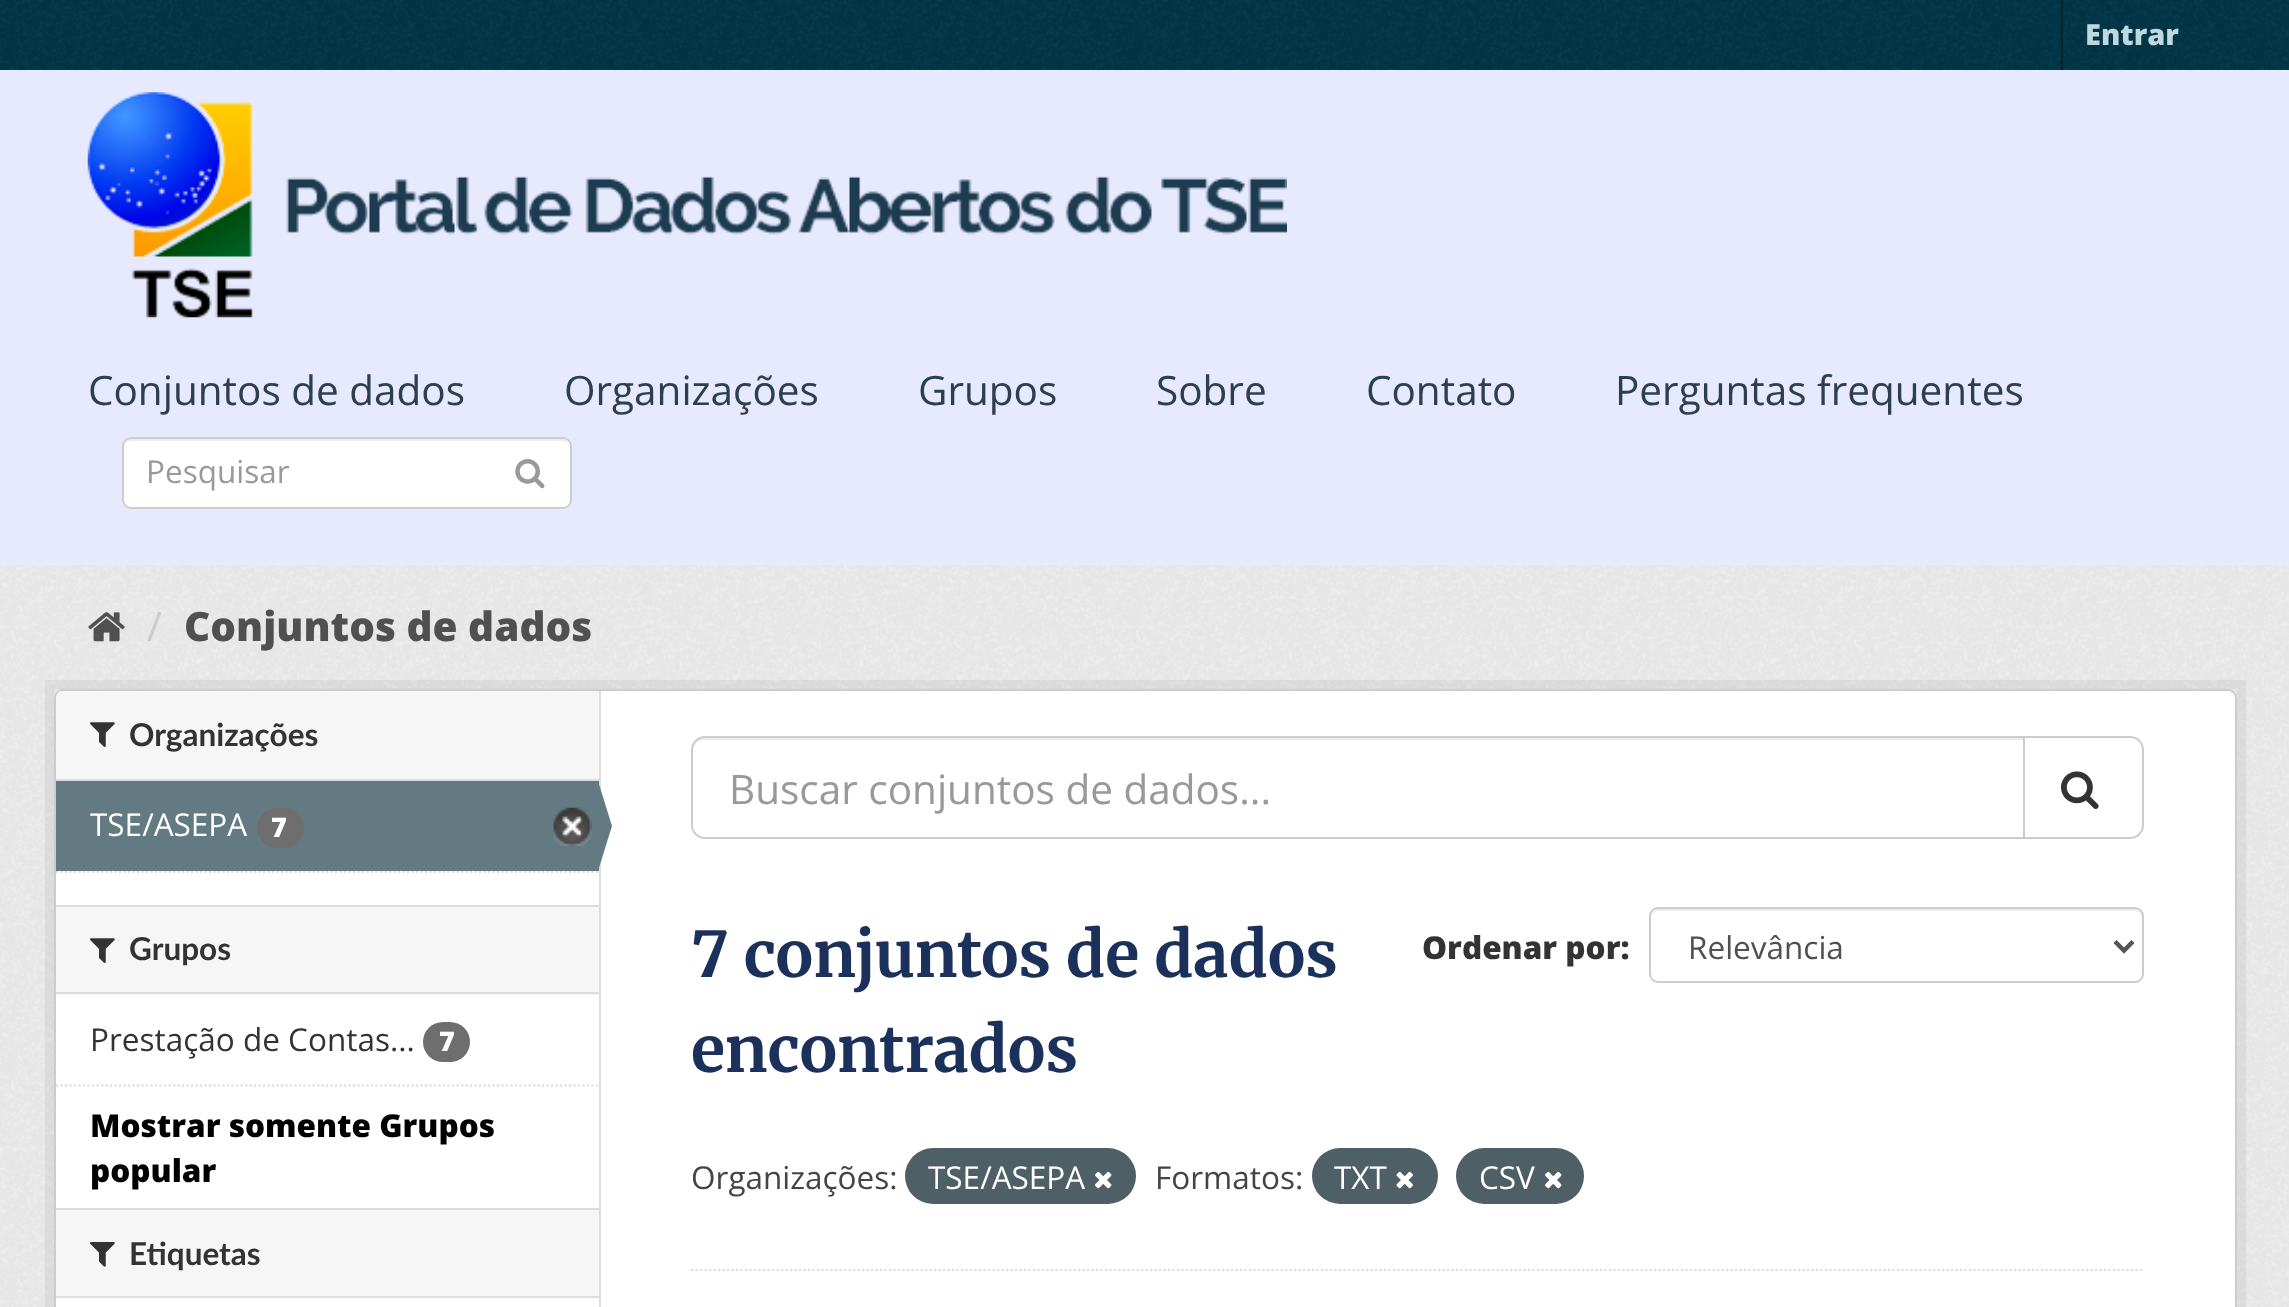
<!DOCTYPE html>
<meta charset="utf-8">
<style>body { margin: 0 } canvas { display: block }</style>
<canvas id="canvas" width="2289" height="1307"></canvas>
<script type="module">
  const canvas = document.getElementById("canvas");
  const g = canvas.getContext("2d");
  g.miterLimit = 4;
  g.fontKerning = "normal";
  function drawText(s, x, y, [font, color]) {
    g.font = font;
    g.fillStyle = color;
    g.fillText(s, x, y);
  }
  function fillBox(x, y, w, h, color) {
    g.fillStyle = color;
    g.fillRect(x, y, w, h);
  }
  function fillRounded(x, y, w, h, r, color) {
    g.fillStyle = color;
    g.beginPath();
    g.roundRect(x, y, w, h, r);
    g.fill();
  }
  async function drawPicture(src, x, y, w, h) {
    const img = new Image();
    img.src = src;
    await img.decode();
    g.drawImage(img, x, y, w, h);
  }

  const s1 = ["800 29px Open Sans", "#BFD7DE"];
  const s2 = ["40.5px Open Sans", "#2D3E50"];
  const s3 = ["31.5px Open Sans", "#999999"];
  const s4 = ["40.5px Open Sans", "#CCCCCC"];
  const s5 = ["800 40.5px Open Sans", "#505050"];
  const s6 = ["bold 31.5px Lato", "#333333"];
  const s7 = ["31.5px Open Sans", "#FFFFFF"];
  const s8 = ["800 27px Open Sans", "#FFFFFF"];
  const s9 = ["31.5px Open Sans", "#333333"];
  const s10 = ["800 31.5px Open Sans", "#000000"];
  const s11 = ["40.5px Open Sans", "#999999"];
  const s12 = ["bold 63px Merriweather", "#1B305A"];
  const s13 = ["800 31.5px Open Sans", "#333333"];
  const s14 = ["31.5px Open Sans", "#505050"];
  const s15 = ["31.5px Open Sans", "#444444"];

  fillBox(0, 0, 2289, 1307, "#003647");
  await drawPicture("pic1.png", 0, 0, 2289, 70);
  fillBox(2061, 0, 2, 70, "#00232E");
  drawText("Entrar", 2085, 45, s1);
  fillBox(0, 70, 2289, 495, "#E7EAFF");
  await drawPicture("pic2.png", 87, 92, 1200, 226);
  drawText("Conjuntos de dados", 88, 405, s2);
  drawText("Organizações", 564, 405, s2);
  drawText("Grupos", 918, 405, s2);
  drawText("Sobre", 1156, 405, s2);
  drawText("Contato", 1366, 405, s2);
  drawText("Perguntas frequentes", 1615, 405, s2);
  fillRounded(122, 437, 450, 72, 9, "#FFFFFF");
  g.fillStyle = "#ECECEC";
  g.beginPath();
  g.moveTo(130, 441);
  g.lineTo(562, 441);
  g.bezierCurveTo(566, 441, 569, 444, 569, 448);
  g.bezierCurveTo(569, 444, 567, 439, 562, 439);
  g.lineTo(131, 439);
  g.bezierCurveTo(126, 439, 124, 444, 124, 448);
  g.bezierCurveTo(124, 444, 127, 441, 130, 441);
  g.closePath();
  g.fill();
  g.beginPath();
  g.roundRect(123, 438, 448, 70, 8);
  g.strokeStyle = "#CCCCCC";
  g.lineWidth = 2;
  g.stroke();
  drawText("Pesquisar", 146, 483, s3);
  await drawPicture("pic3.png", 515, 459, 30, 30);
  fillBox(0, 565, 2289, 742, "#EEEEEE");
  await drawPicture("pic4.png", 0, 565, 2289, 742);
  await drawPicture("pic5.png", 88, 612, 37, 30);
  drawText("/", 147, 641, s4);
  drawText("Conjuntos de dados", 184, 641, s5);
  g.strokeStyle = "rgba(0, 0, 0, 0.05)";
  g.lineWidth = 9;
  g.strokeRect(49.5, 684.5, 2192, 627);
  g.fillStyle = "#FFFFFF";
  g.beginPath();
  g.roundRect(55, 690, 2181, 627, 8);
  g.fill();
  g.strokeStyle = "#CCCCCC";
  g.lineWidth = 2;
  g.stroke();
  g.fillStyle = "#F6F6F6";
  g.beginPath();
  g.roundRect(56, 691, 543, 90, [7, 0, 0, 0]);
  g.fill();
  fillBox(56, 779, 543, 2, "#DDDDDD");
  await drawPicture("pic6.png", 90, 722, 25, 25);
  drawText("Organizações", 129, 746, s6);
  g.beginPath();
  g.moveTo(56, 872);
  g.lineTo(598.5, 872);
  g.strokeStyle = "#DDDDDD";
  g.lineWidth = 2.2;
  g.setLineDash([2.25, 2.25]);
  g.stroke();
  fillBox(56, 781, 543, 90, "#647A82");
  drawText("TSE/ASEPA", 90, 836, s7);
  fillRounded(257, 808, 47, 40, 20, "#6E6E6E");
  drawText("7", 271, 837, s8);
  await drawPicture("pic7.png", 553, 807, 39, 39);
  fillBox(599, 691, 2, 616, "#DDDDDD");
  g.fillStyle = "#647A82";
  g.beginPath();
  g.moveTo(598, 871);
  g.lineTo(598, 781);
  g.lineTo(612, 826);
  g.closePath();
  g.fill();
  fillBox(56, 907, 543, 88, "#F6F6F6");
  fillBox(56, 905, 543, 2, "#DDDDDD");
  fillBox(56, 992, 543, 2, "#DDDDDD");
  await drawPicture("pic6.png", 90, 938, 25, 25);
  drawText("Grupos", 129, 960, s6);
  drawText("Prestação de Contas...", 90, 1051, s9);
  fillRounded(423, 1022, 47, 40, 20, "#6E6E6E");
  drawText("7", 439, 1051, s8);
  g.beginPath();
  g.moveTo(56, 1085.5);
  g.lineTo(598.5, 1085.5);
  g.stroke();
  drawText("Mostrar somente Grupos", 90, 1137, s10);
  drawText("popular", 90, 1182, s10);
  fillBox(56, 1210, 543, 86, "#F6F6F6");
  fillBox(56, 1208, 543, 2, "#DDDDDD");
  fillBox(56, 1296, 543, 2, "#DDDDDD");
  await drawPicture("pic8.png", 90, 1242, 25, 25);
  drawText("Etiquetas", 129, 1265, s6);
  g.beginPath();
  g.moveTo(691, 1270);
  g.lineTo(2144, 1270);
  g.stroke();
  g.fillStyle = "#ECECEC";
  g.beginPath();
  g.moveTo(704, 740);
  g.lineTo(2023, 740);
  g.lineTo(2023, 738);
  g.lineTo(704, 738);
  g.bezierCurveTo(696, 738, 693, 745, 693, 752);
  g.bezierCurveTo(693, 745, 698, 740, 704, 740);
  g.closePath();
  g.fill();
  g.beginPath();
  g.roundRect(692, 737, 1332, 101, [13, 0, 0, 13]);
  g.strokeStyle = "#CCCCCC";
  g.lineWidth = 2;
  g.setLineDash([]);
  g.stroke();
  drawText("Buscar conjuntos de dados...", 729, 804, s11);
  g.fillStyle = "#FFFFFF";
  g.beginPath();
  g.roundRect(2024, 737, 119, 101, [0, 13, 13, 0]);
  g.fill();
  g.stroke();
  await drawPicture("pic9.png", 2061, 771, 38, 38);
  drawText("7 conjuntos de dados", 691, 977, s12);
  drawText("encontrados", 691, 1072, s12);
  drawText("Ordenar por:", 1422, 959, s13);
  g.fillStyle = "#ECECEC";
  g.beginPath();
  g.moveTo(1658, 911);
  g.lineTo(2135, 911);
  g.bezierCurveTo(2139, 911, 2142, 914, 2142, 918);
  g.lineTo(2142, 916);
  g.bezierCurveTo(2142, 912, 2139, 909, 2135, 909);
  g.lineTo(1659, 909);
  g.bezierCurveTo(1655, 909, 1652, 912, 1652, 916);
  g.lineTo(1652, 918);
  g.bezierCurveTo(1652, 914, 1655, 911, 1658, 911);
  g.closePath();
  g.fill();
  g.beginPath();
  g.roundRect(1650, 908, 493, 74, 8);
  g.stroke();
  g.beginPath();
  g.moveTo(2115, 941.5);
  g.lineTo(2124, 950.5);
  g.lineTo(2133, 941.5);
  g.strokeStyle = "#555555";
  g.lineWidth = 4.5;
  g.stroke();
  drawText("Relevância", 1688, 959, s14);
  drawText("Organizações:", 691, 1189, s15);
  fillRounded(905, 1148, 231, 56, 28, "#4E5F65");
  drawText("TSE/ASEPA", 928, 1189, s7);
  await drawPicture("pic10.png", 1095, 1171, 17, 18);
  drawText("Formatos:", 1155, 1189, s15);
  fillRounded(1312, 1148, 126, 56, 28, "#4E5F65");
  drawText("TXT", 1334, 1189, s7);
  await drawPicture("pic11.png", 1396, 1171, 17, 18);
  fillRounded(1456, 1148, 128, 56, 28, "#4E5F65");
  drawText("CSV", 1479, 1189, s7);
  await drawPicture("pic10.png", 1545, 1171, 17, 18);
</script>
